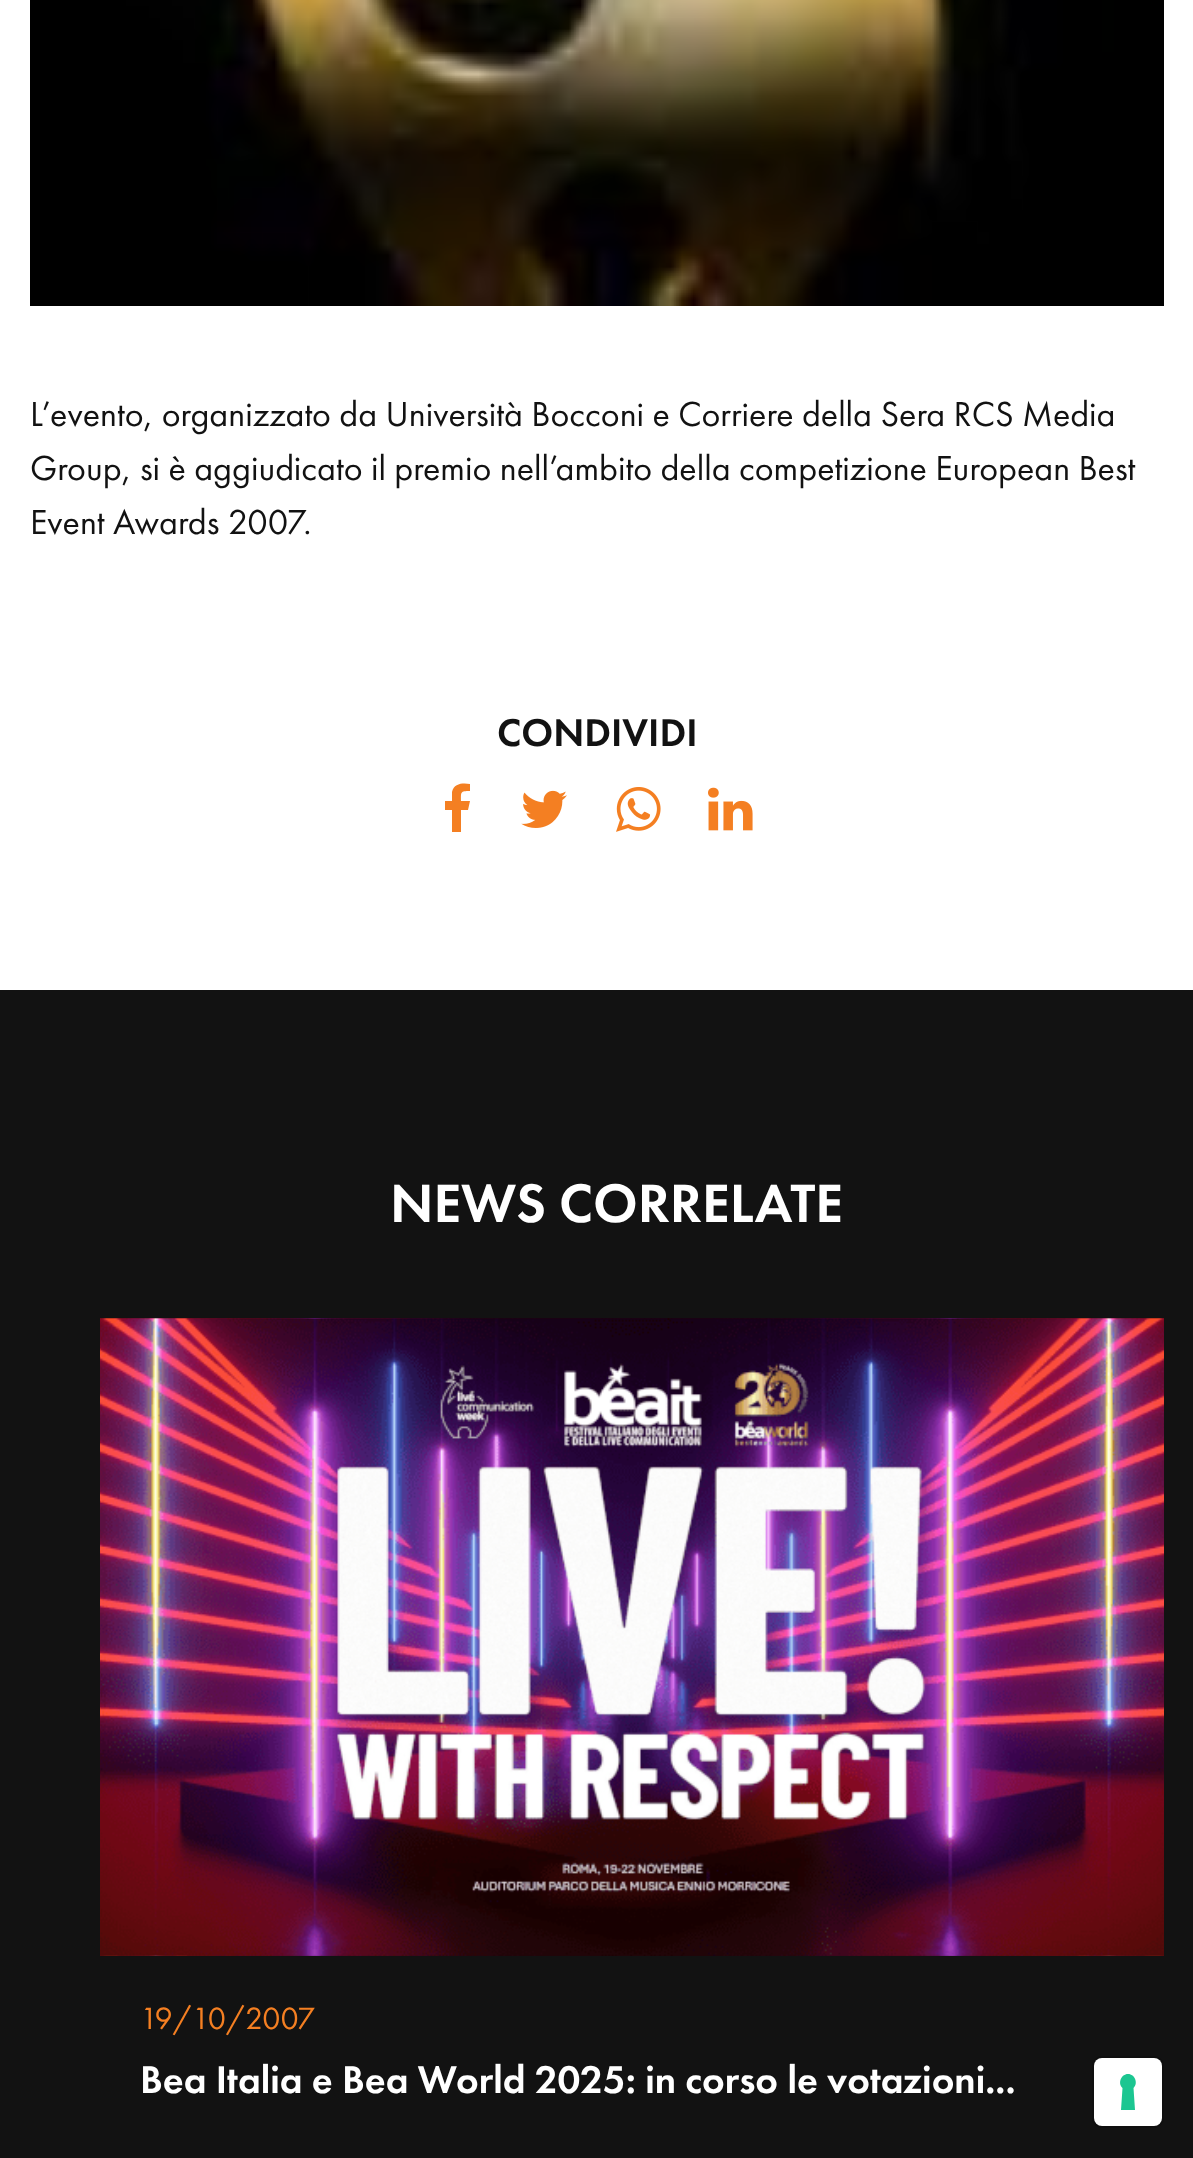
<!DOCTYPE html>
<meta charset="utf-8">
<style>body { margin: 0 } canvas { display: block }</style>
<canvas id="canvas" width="1193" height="2158"></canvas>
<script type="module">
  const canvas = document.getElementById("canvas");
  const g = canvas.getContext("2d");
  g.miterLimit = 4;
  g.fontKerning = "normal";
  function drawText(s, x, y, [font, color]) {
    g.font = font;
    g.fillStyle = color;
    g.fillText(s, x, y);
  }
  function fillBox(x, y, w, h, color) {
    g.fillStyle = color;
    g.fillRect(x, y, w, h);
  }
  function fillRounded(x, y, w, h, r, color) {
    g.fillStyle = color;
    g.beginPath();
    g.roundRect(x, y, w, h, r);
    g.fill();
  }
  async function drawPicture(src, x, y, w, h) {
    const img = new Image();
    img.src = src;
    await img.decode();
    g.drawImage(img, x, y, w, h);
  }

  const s1 = ["36px Futura PT", "#121212"];
  const s2 = ["500 40px Futura PT", "#121212"];
  const s3 = ["500 56px Futura PT", "#FFFFFF"];
  const s4 = ["32px Futura PT", "#F47F22"];
  const s5 = ["500 40px Futura PT", "#FFFFFF"];

  fillBox(0, 0, 1193, 2158, "#121212");
  fillBox(0, 0, 1193, 990, "#FFFFFF");
  await drawPicture("pic1.png", 30, 0, 1134, 306);
  drawText("L’evento, organizzato da Università Bocconi e Corriere della Sera RCS Media", 30, 426, s1);
  drawText("Group, si è aggiudicato il premio nell’ambito della competizione European Best", 30, 480, s1);
  drawText("Event Awards 2007.", 30, 534, s1);
  drawText("CONDIVIDI", 497, 746, s2);
  g.fillStyle = "#F47F22";
  g.beginPath();
  g.moveTo(470, 784);
  g.lineTo(470, 791);
  g.bezierCurveTo(460, 791, 461, 792, 461, 801);
  g.lineTo(470, 801);
  g.lineTo(468, 810);
  g.lineTo(461, 810);
  g.lineTo(461, 832);
  g.lineTo(452, 832);
  g.lineTo(452, 810);
  g.lineTo(445, 810);
  g.lineTo(445, 801);
  g.lineTo(452, 801);
  g.lineTo(452, 792);
  g.bezierCurveTo(454, 783, 463, 783, 470, 784);
  g.closePath();
  g.fill();
  await drawPicture("pic2.png", 521, 790, 46, 38);
  await drawPicture("pic3.png", 616, 787, 45, 45);
  await drawPicture("pic4.png", 708, 787, 45, 44);
  drawText("NEWS CORRELATE", 390, 1222, s3);
  await drawPicture("pic5.png", 100, 1318, 1064, 638);
  drawText("19/10/2007", 140, 2029, s4);
  drawText("Bea Italia e Bea World 2025: in corso le votazioni...", 140, 2093, s5);
  g.beginPath();
  g.roundRect(1093, 2057, 70, 70, 9);
  g.strokeStyle = "#0F0F0F";
  g.lineWidth = 2;
  g.stroke();
  fillRounded(1094, 2058, 68, 68, 8, "#FFFFFF");
  g.fillStyle = "#1CC691";
  g.beginPath();
  g.moveTo(1128, 2074);
  g.bezierCurveTo(1135, 2074, 1138.5, 2083.5, 1133.5, 2088);
  g.lineTo(1135, 2110);
  g.lineTo(1121, 2110);
  g.lineTo(1122.5, 2088);
  g.bezierCurveTo(1117.5, 2083.5, 1121, 2074, 1128, 2074);
  g.closePath();
  g.fill("evenodd");
</script>
